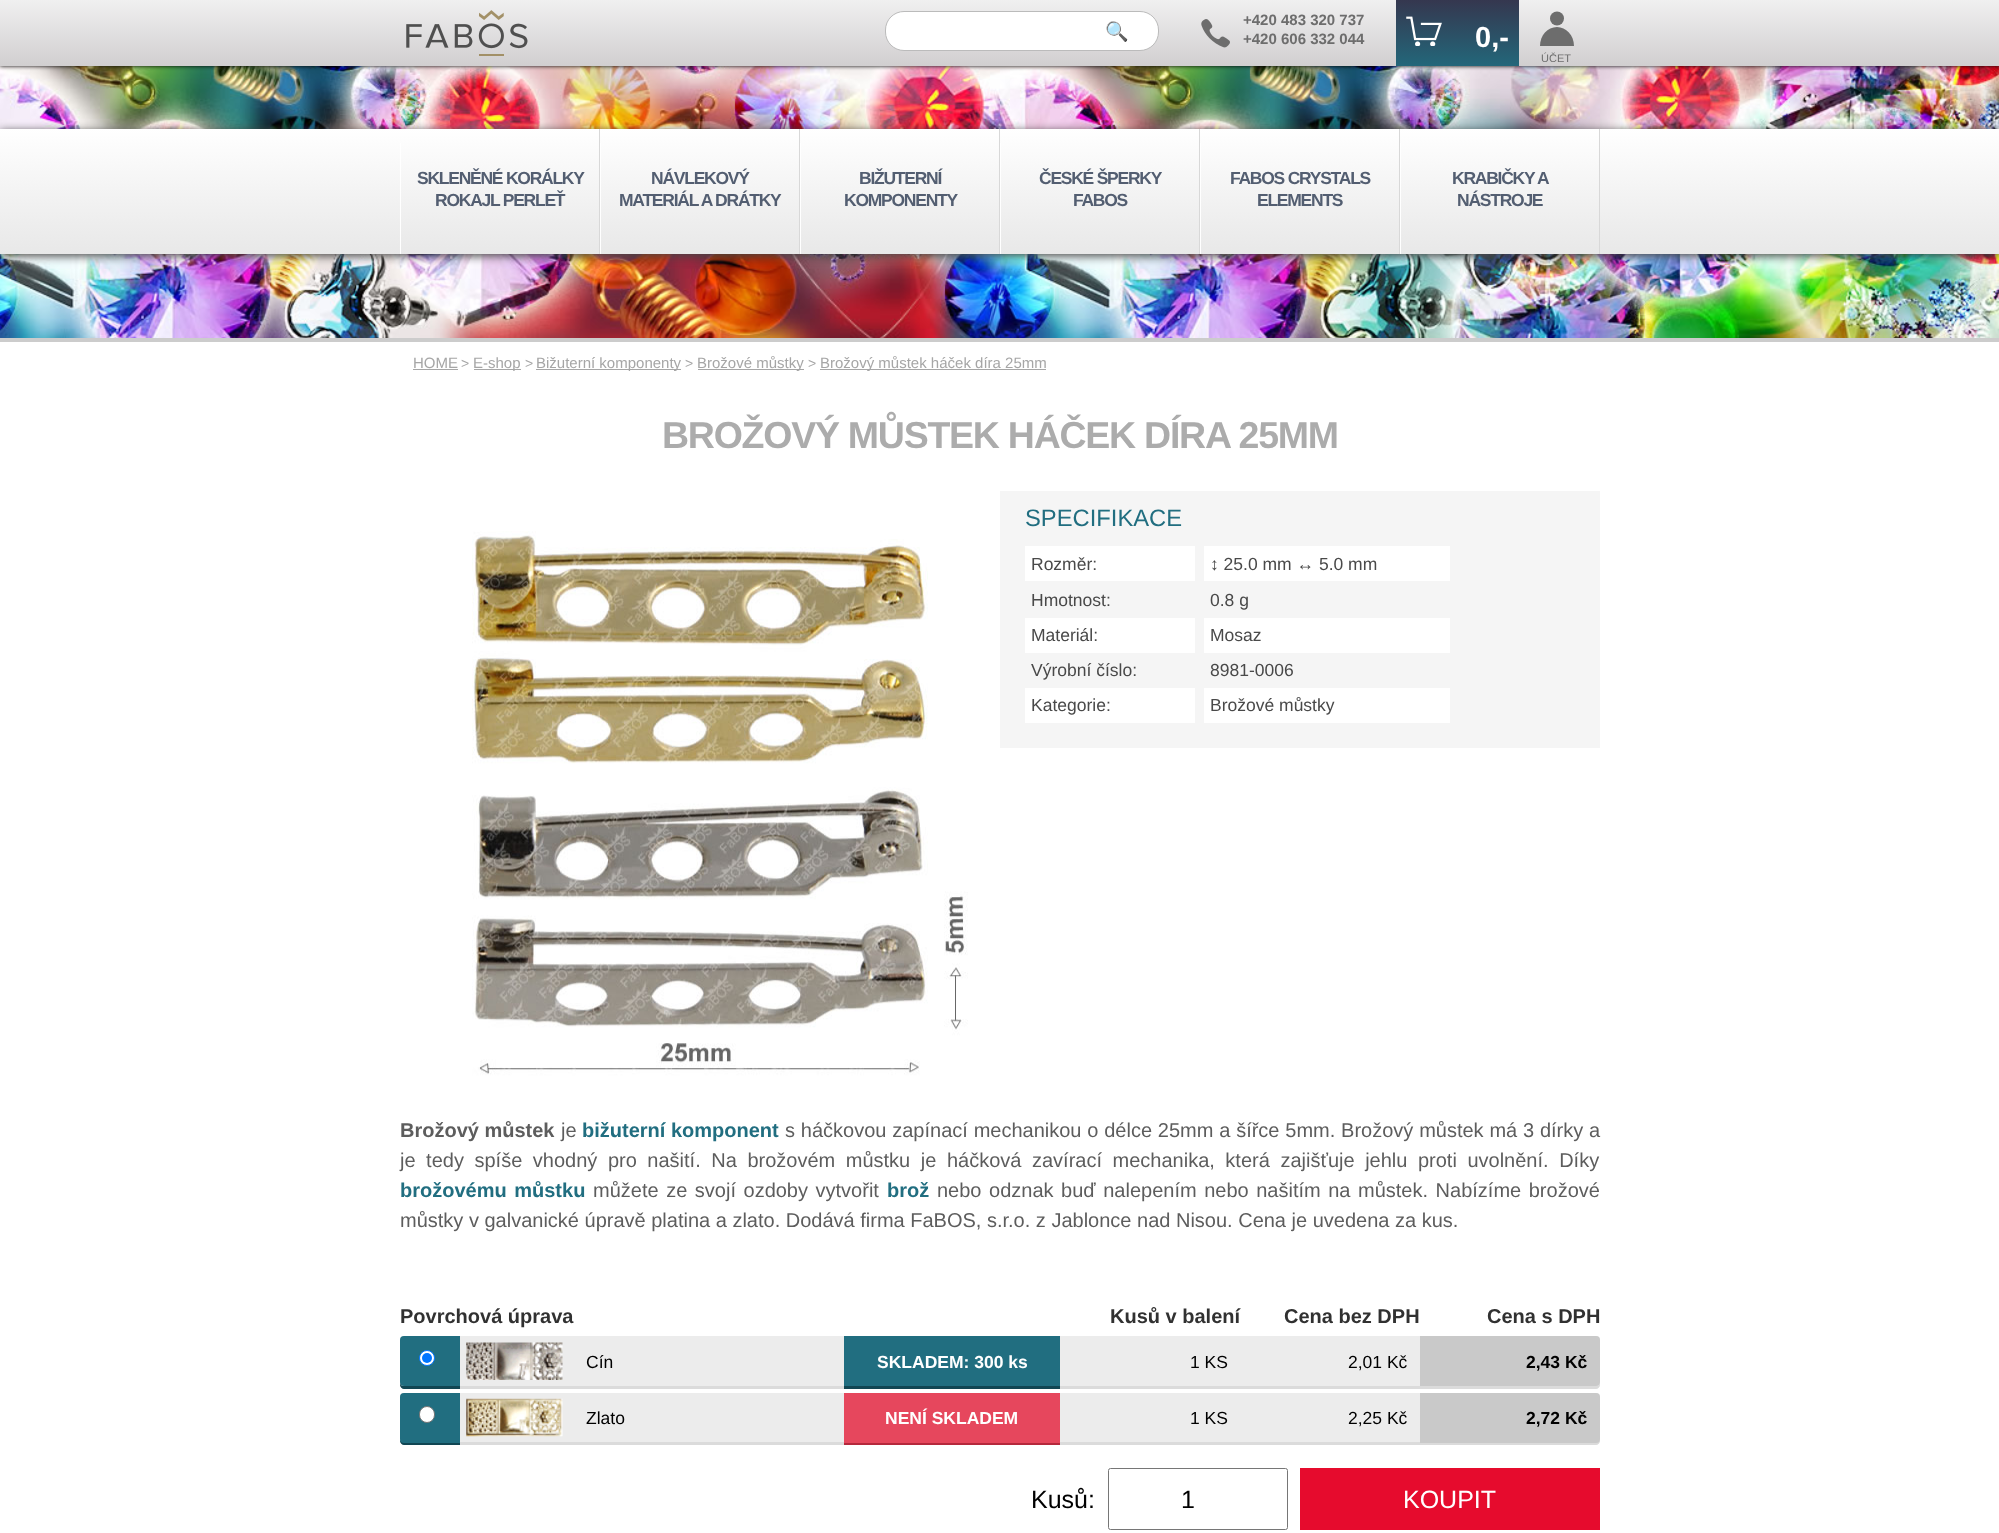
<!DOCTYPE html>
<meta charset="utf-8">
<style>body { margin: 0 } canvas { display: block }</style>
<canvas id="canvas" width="1999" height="1533"></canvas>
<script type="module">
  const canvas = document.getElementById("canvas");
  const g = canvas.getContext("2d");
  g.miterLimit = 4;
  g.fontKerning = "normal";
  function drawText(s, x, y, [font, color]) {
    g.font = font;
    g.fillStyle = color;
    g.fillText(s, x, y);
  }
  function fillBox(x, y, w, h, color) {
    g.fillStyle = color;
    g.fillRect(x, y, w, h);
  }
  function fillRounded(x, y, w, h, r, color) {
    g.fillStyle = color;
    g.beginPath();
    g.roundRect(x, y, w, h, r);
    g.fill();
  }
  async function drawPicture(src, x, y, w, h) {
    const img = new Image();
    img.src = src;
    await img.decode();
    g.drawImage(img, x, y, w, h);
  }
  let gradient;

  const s1 = ["19px Noto Color Emoji", "#757575"];
  const s2 = ["bold 15px Liberation Sans", "#6D6D6D"];
  const s3 = ["bold 29px Liberation Sans", "#FFFFFF"];
  const s4 = ["11px Liberation Sans", "#6D6D6D"];
  const s5 = ["bold 17.5px Liberation Sans", "#535E71"];
  const s6 = ["15px Liberation Sans", "#A6A6A6"];
  const s7 = ["14px Liberation Sans", "#A6A6A6"];
  const s8 = ["bold 37.5px Liberation Sans", "#ACACAC"];
  const s9 = ["23.75px Liberation Sans", "#216E80"];
  const s10 = ["17.5px Liberation Sans", "#494949"];
  const s11 = ["bold 20px Liberation Sans", "#5D5D5D"];
  const s12 = ["20px Liberation Sans", "#5D5D5D"];
  const s13 = ["bold 20px Liberation Sans", "#216E80"];
  const s14 = ["bold 20px Liberation Sans", "#313131"];
  const s15 = ["17.5px Liberation Sans", "#000000"];
  const s16 = ["bold 17.5px Liberation Sans", "#FFFFFF"];
  const s17 = ["bold 17.5px Liberation Sans", "#000000"];
  const s18 = ["25px Liberation Sans", "#000000"];
  const s19 = ["25px Liberation Sans", "#FFFFFF"];

  fillBox(0, 0, 1999, 1533, "#FFFFFF");
  await drawPicture("pic1.png", 0, 66, 1999, 272);
  g.fillStyle = "#000000";
  g.filter = "blur(2px)";
  g.beginPath();
  g.rect(0, 0, 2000, 66);
  g.fill();
  g.filter = "none";
  gradient = g.createLinearGradient(1000, 0, 1000, 66);
  gradient.addColorStop(0, "#F0F0F0");
  gradient.addColorStop(1, "#D1CFD0");
  g.fillStyle = gradient;
  g.fillRect(0, 0, 1999, 66);
  await drawPicture("pic2.png", 406, 10, 122, 46);
  g.fillStyle = "#FFFFFF";
  g.beginPath();
  g.roundRect(885.5, 11.5, 273, 39, 18.5);
  g.fill();
  g.strokeStyle = "#BBBBBB";
  g.stroke();
  drawText("🔍", 1105, 38, s1);
  await drawPicture("pic3.png", 1201, 19, 29, 29);
  drawText("+420 483 320 737", 1243, 25, s2);
  drawText("+420 606 332 044", 1243, 44, s2);
  gradient = g.createLinearGradient(1458, 0, 1458, 66);
  gradient.addColorStop(0, "#35374F");
  gradient.addColorStop(1, "#23677A");
  g.fillStyle = gradient;
  g.fillRect(1396, 0, 123, 66);
  await drawPicture("pic4.png", 1406, 16, 36, 30);
  drawText("0,-", 1475, 47, s3);
  g.fillStyle = "#6D6D6D";
  g.beginPath();
  g.arc(1557, 18.5, 7, 0, Math.PI * 2);
  g.fill();
  g.beginPath();
  g.moveTo(1574, 46);
  g.bezierCurveTo(1574, 35.5, 1566, 27, 1557, 27);
  g.bezierCurveTo(1547.5, 27, 1540, 35.5, 1540, 46);
  g.closePath();
  g.fill();
  drawText("ÚČET", 1541, 62, s4);
  fillBox(0, 338, 1999, 4, "#CCCCCC");
  g.fillStyle = "#444444";
  g.filter = "blur(5px)";
  g.beginPath();
  g.rect(0, 131, 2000, 125);
  g.fill();
  g.filter = "none";
  gradient = g.createLinearGradient(1000, 129, 1000, 254);
  gradient.addColorStop(0, "#FFFFFF");
  gradient.addColorStop(1, "#E8E8E8");
  g.fillStyle = gradient;
  g.fillRect(0, 129, 1999, 125);
  fillBox(599, 129, 1, 125, "#D8D8D8");
  fillBox(400, 143, 1, 111, "#FFFFFF");
  g.letterSpacing = "-1.25px";
  drawText("SKLENĚNÉ KORÁLKY", 417, 184, s5);
  drawText("ROKAJL PERLEŤ", 435, 206, s5);
  fillBox(799, 129, 1, 125, "#D8D8D8");
  fillBox(600, 143, 1, 111, "#FFFFFF");
  drawText("NÁVLEKOVÝ", 651, 184, s5);
  drawText("MATERIÁL A DRÁTKY", 619, 206, s5);
  fillBox(999, 129, 1, 125, "#D8D8D8");
  fillBox(800, 143, 1, 111, "#FFFFFF");
  drawText("BIŽUTERNÍ", 859, 184, s5);
  drawText("KOMPONENTY", 844, 206, s5);
  fillBox(1199, 129, 1, 125, "#D8D8D8");
  fillBox(1000, 143, 1, 111, "#FFFFFF");
  drawText("ČESKÉ ŠPERKY", 1039, 184, s5);
  drawText("FABOS", 1073, 206, s5);
  fillBox(1399, 129, 1, 125, "#D8D8D8");
  fillBox(1200, 143, 1, 111, "#FFFFFF");
  drawText("FABOS CRYSTALS", 1230, 184, s5);
  drawText("ELEMENTS", 1257, 206, s5);
  fillBox(1599, 129, 1, 125, "#D8D8D8");
  fillBox(1400, 143, 1, 111, "#FFFFFF");
  drawText("KRABIČKY A", 1452, 184, s5);
  drawText("NÁSTROJE", 1457, 206, s5);
  g.letterSpacing = "0px";
  drawText("HOME", 413, 368, s6);
  fillBox(413, 369, 45, 1, "#A6A6A6");
  drawText(">", 461, 368, s7);
  fillBox(474, 369, 47, 1, "#A6A6A6");
  drawText("E-shop", 473, 368, s6);
  drawText(">", 525, 368, s7);
  fillBox(536, 369, 145, 1, "#A6A6A6");
  drawText("Bižuterní komponenty", 536, 368, s6);
  drawText(">", 685, 368, s7);
  fillBox(698, 369, 106, 1, "#A6A6A6");
  drawText("Brožové můstky", 697, 368, s6);
  drawText(">", 808, 368, s7);
  fillBox(820, 369, 226, 1, "#A6A6A6");
  drawText("Brožový můstek háček díra 25mm", 820, 368, s6);
  g.letterSpacing = "-1.25px";
  drawText("BROŽOVÝ MŮSTEK HÁČEK DÍRA 25MM", 662, 448, s8);
  await drawPicture("pic5.png", 400, 491, 600, 600);
  fillBox(1000, 491, 600, 257, "#F5F5F5");
  g.letterSpacing = "0px";
  drawText("SPECIFIKACE", 1025, 526, s9);
  fillBox(1025, 546, 170, 35, "#FFFFFF");
  drawText("Rozměr:", 1031, 570, s10);
  fillBox(1204, 546, 246, 35, "#FFFFFF");
  drawText("↕ 25.0 mm ↔ 5.0 mm", 1210, 570, s10);
  drawText("Hmotnost:", 1031, 606, s10);
  drawText("0.8 g", 1210, 606, s10);
  fillBox(1025, 618, 170, 35, "#FFFFFF");
  drawText("Materiál:", 1031, 641, s10);
  fillBox(1204, 618, 246, 35, "#FFFFFF");
  drawText("Mosaz", 1210, 641, s10);
  drawText("Výrobní číslo:", 1031, 676, s10);
  drawText("8981-0006", 1210, 676, s10);
  fillBox(1025, 688, 170, 35, "#FFFFFF");
  drawText("Kategorie:", 1031, 711, s10);
  fillBox(1204, 688, 246, 35, "#FFFFFF");
  drawText("Brožové můstky", 1210, 711, s10);
  drawText("Brožový můstek", 400, 1137, s11);
  drawText("je", 561, 1137, s12);
  drawText("bižuterní komponent", 582, 1137, s13);
  g.wordSpacing = "0.25px";
  drawText("s háčkovou zapínací mechanikou o délce 25mm a šířce 5mm. Brožový můstek má 3 dírky a", 785, 1137, s12);
  g.wordSpacing = "5px";
  drawText("je tedy spíše vhodný pro našití. Na brožovém můstku je háčková zavírací mechanika, která zajišťuje jehlu proti uvolnění. Díky", 400, 1167, s12);
  g.wordSpacing = "2px";
  drawText("brožovému můstku", 400, 1197, s13);
  drawText("můžete ze svojí ozdoby vytvořit", 593, 1197, s12);
  g.wordSpacing = "0px";
  drawText("brož", 887, 1197, s13);
  g.wordSpacing = "2px";
  drawText("nebo odznak buď nalepením nebo našitím na můstek. Nabízíme brožové", 937, 1197, s12);
  g.wordSpacing = "0px";
  drawText("můstky v galvanické úpravě platina a zlato. Dodává firma FaBOS, s.r.o. z Jablonce nad Nisou. Cena je uvedena za kus.", 400, 1227, s12);
  drawText("Povrchová úprava", 400, 1323, s14);
  drawText("Kusů v balení", 1110, 1323, s14);
  drawText("Cena bez DPH", 1284, 1323, s14);
  drawText("Cena s DPH", 1487, 1323, s14);
  fillRounded(400, 1336, 1200, 50, 4, "#ECECEC");
  g.fillStyle = "#114653";
  g.beginPath();
  g.moveTo(400, 1382);
  g.lineTo(400, 1385);
  g.bezierCurveTo(400, 1387, 402, 1389, 404, 1389);
  g.lineTo(460, 1389);
  g.lineTo(460, 1386);
  g.lineTo(404, 1386);
  g.bezierCurveTo(402, 1386, 400, 1385, 400, 1382);
  g.closePath();
  g.fill();
  g.fillStyle = "#216E80";
  g.beginPath();
  g.roundRect(400, 1336, 60, 50, [4, 0, 0, 4]);
  g.fill();
  g.fillStyle = "#FFFFFF";
  g.beginPath();
  g.arc(427, 1358, 7.5, 0, Math.PI * 2);
  g.fill();
  g.strokeStyle = "#0075FF";
  g.stroke();
  g.fillStyle = "#0075FF";
  g.beginPath();
  g.arc(427, 1358, 5, 0, Math.PI * 2);
  g.fill();
  fillBox(460, 1386, 120, 3, "#DBDBDB");
  await drawPicture("pic6.png", 466, 1342, 97, 38);
  g.beginPath();
  g.moveTo(580, 1386);
  g.lineTo(580, 1389);
  g.lineTo(844, 1389);
  g.lineTo(844, 1339);
  g.lineTo(844, 1386);
  g.closePath();
  g.fill();
  drawText("Cín", 586, 1368, s15);
  fillBox(844, 1386, 216, 3, "#114653");
  fillBox(844, 1336, 216, 50, "#216E80");
  drawText("SKLADEM: 300 ks", 877, 1368, s16);
  fillBox(1060, 1386, 360, 3, "#DBDBDB");
  drawText("1 KS", 1190, 1368, s15);
  drawText("2,01 Kč", 1348, 1368, s15);
  g.fillStyle = "#DBDBDB";
  g.beginPath();
  g.moveTo(1420, 1386);
  g.lineTo(1420, 1389);
  g.lineTo(1596, 1389);
  g.bezierCurveTo(1598, 1389, 1600, 1387, 1600, 1385);
  g.lineTo(1600, 1382);
  g.bezierCurveTo(1600, 1385, 1598, 1386, 1596, 1386);
  g.closePath();
  g.fill();
  g.fillStyle = "#C9C9C9";
  g.beginPath();
  g.roundRect(1420, 1336, 180, 50, [0, 4, 4, 0]);
  g.fill();
  drawText("2,43 Kč", 1526, 1368, s17);
  fillRounded(400, 1393, 1200, 50, 4, "#ECECEC");
  g.fillStyle = "#114653";
  g.beginPath();
  g.moveTo(400, 1439);
  g.lineTo(400, 1441);
  g.bezierCurveTo(400, 1443, 402, 1445, 404, 1445);
  g.lineTo(460, 1445);
  g.lineTo(460, 1442);
  g.lineTo(404, 1442);
  g.bezierCurveTo(402, 1442, 400, 1441, 400, 1439);
  g.closePath();
  g.fill();
  g.fillStyle = "#216E80";
  g.beginPath();
  g.roundRect(400, 1393, 60, 50, [4, 0, 0, 4]);
  g.fill();
  g.fillStyle = "#FFFFFF";
  g.beginPath();
  g.roundRect(419.5, 1406.5, 15, 16, 7.5);
  g.fill();
  g.strokeStyle = "#767676";
  g.stroke();
  fillBox(460, 1442, 120, 3, "#DBDBDB");
  await drawPicture("pic7.png", 466, 1398, 97, 39);
  g.beginPath();
  g.moveTo(580, 1442);
  g.lineTo(580, 1445);
  g.lineTo(844, 1445);
  g.lineTo(844, 1395);
  g.lineTo(844, 1442);
  g.closePath();
  g.fill();
  drawText("Zlato", 586, 1424, s15);
  fillBox(844, 1443, 216, 2, "#B5283C");
  fillBox(844, 1393, 216, 50, "#E6475D");
  drawText("NENÍ SKLADEM", 885, 1424, s16);
  fillBox(1060, 1442, 360, 3, "#DBDBDB");
  drawText("1 KS", 1190, 1424, s15);
  drawText("2,25 Kč", 1348, 1424, s15);
  g.fillStyle = "#DBDBDB";
  g.beginPath();
  g.moveTo(1420, 1442);
  g.lineTo(1420, 1445);
  g.lineTo(1596, 1445);
  g.bezierCurveTo(1598, 1445, 1600, 1443, 1600, 1441);
  g.lineTo(1600, 1439);
  g.bezierCurveTo(1600, 1441, 1598, 1442, 1596, 1442);
  g.closePath();
  g.fill();
  g.fillStyle = "#C9C9C9";
  g.beginPath();
  g.roundRect(1420, 1393, 180, 50, [0, 4, 4, 0]);
  g.fill();
  drawText("2,72 Kč", 1526, 1424, s17);
  drawText("Kusů:", 1031, 1508, s18);
  g.beginPath();
  g.roundRect(1108.5, 1468.5, 179, 61, 2);
  g.stroke();
  drawText("1", 1181, 1508, s18);
  fillBox(1300, 1468, 300, 62, "#E60B2D");
  drawText("KOUPIT", 1403, 1508, s19);
</script>
